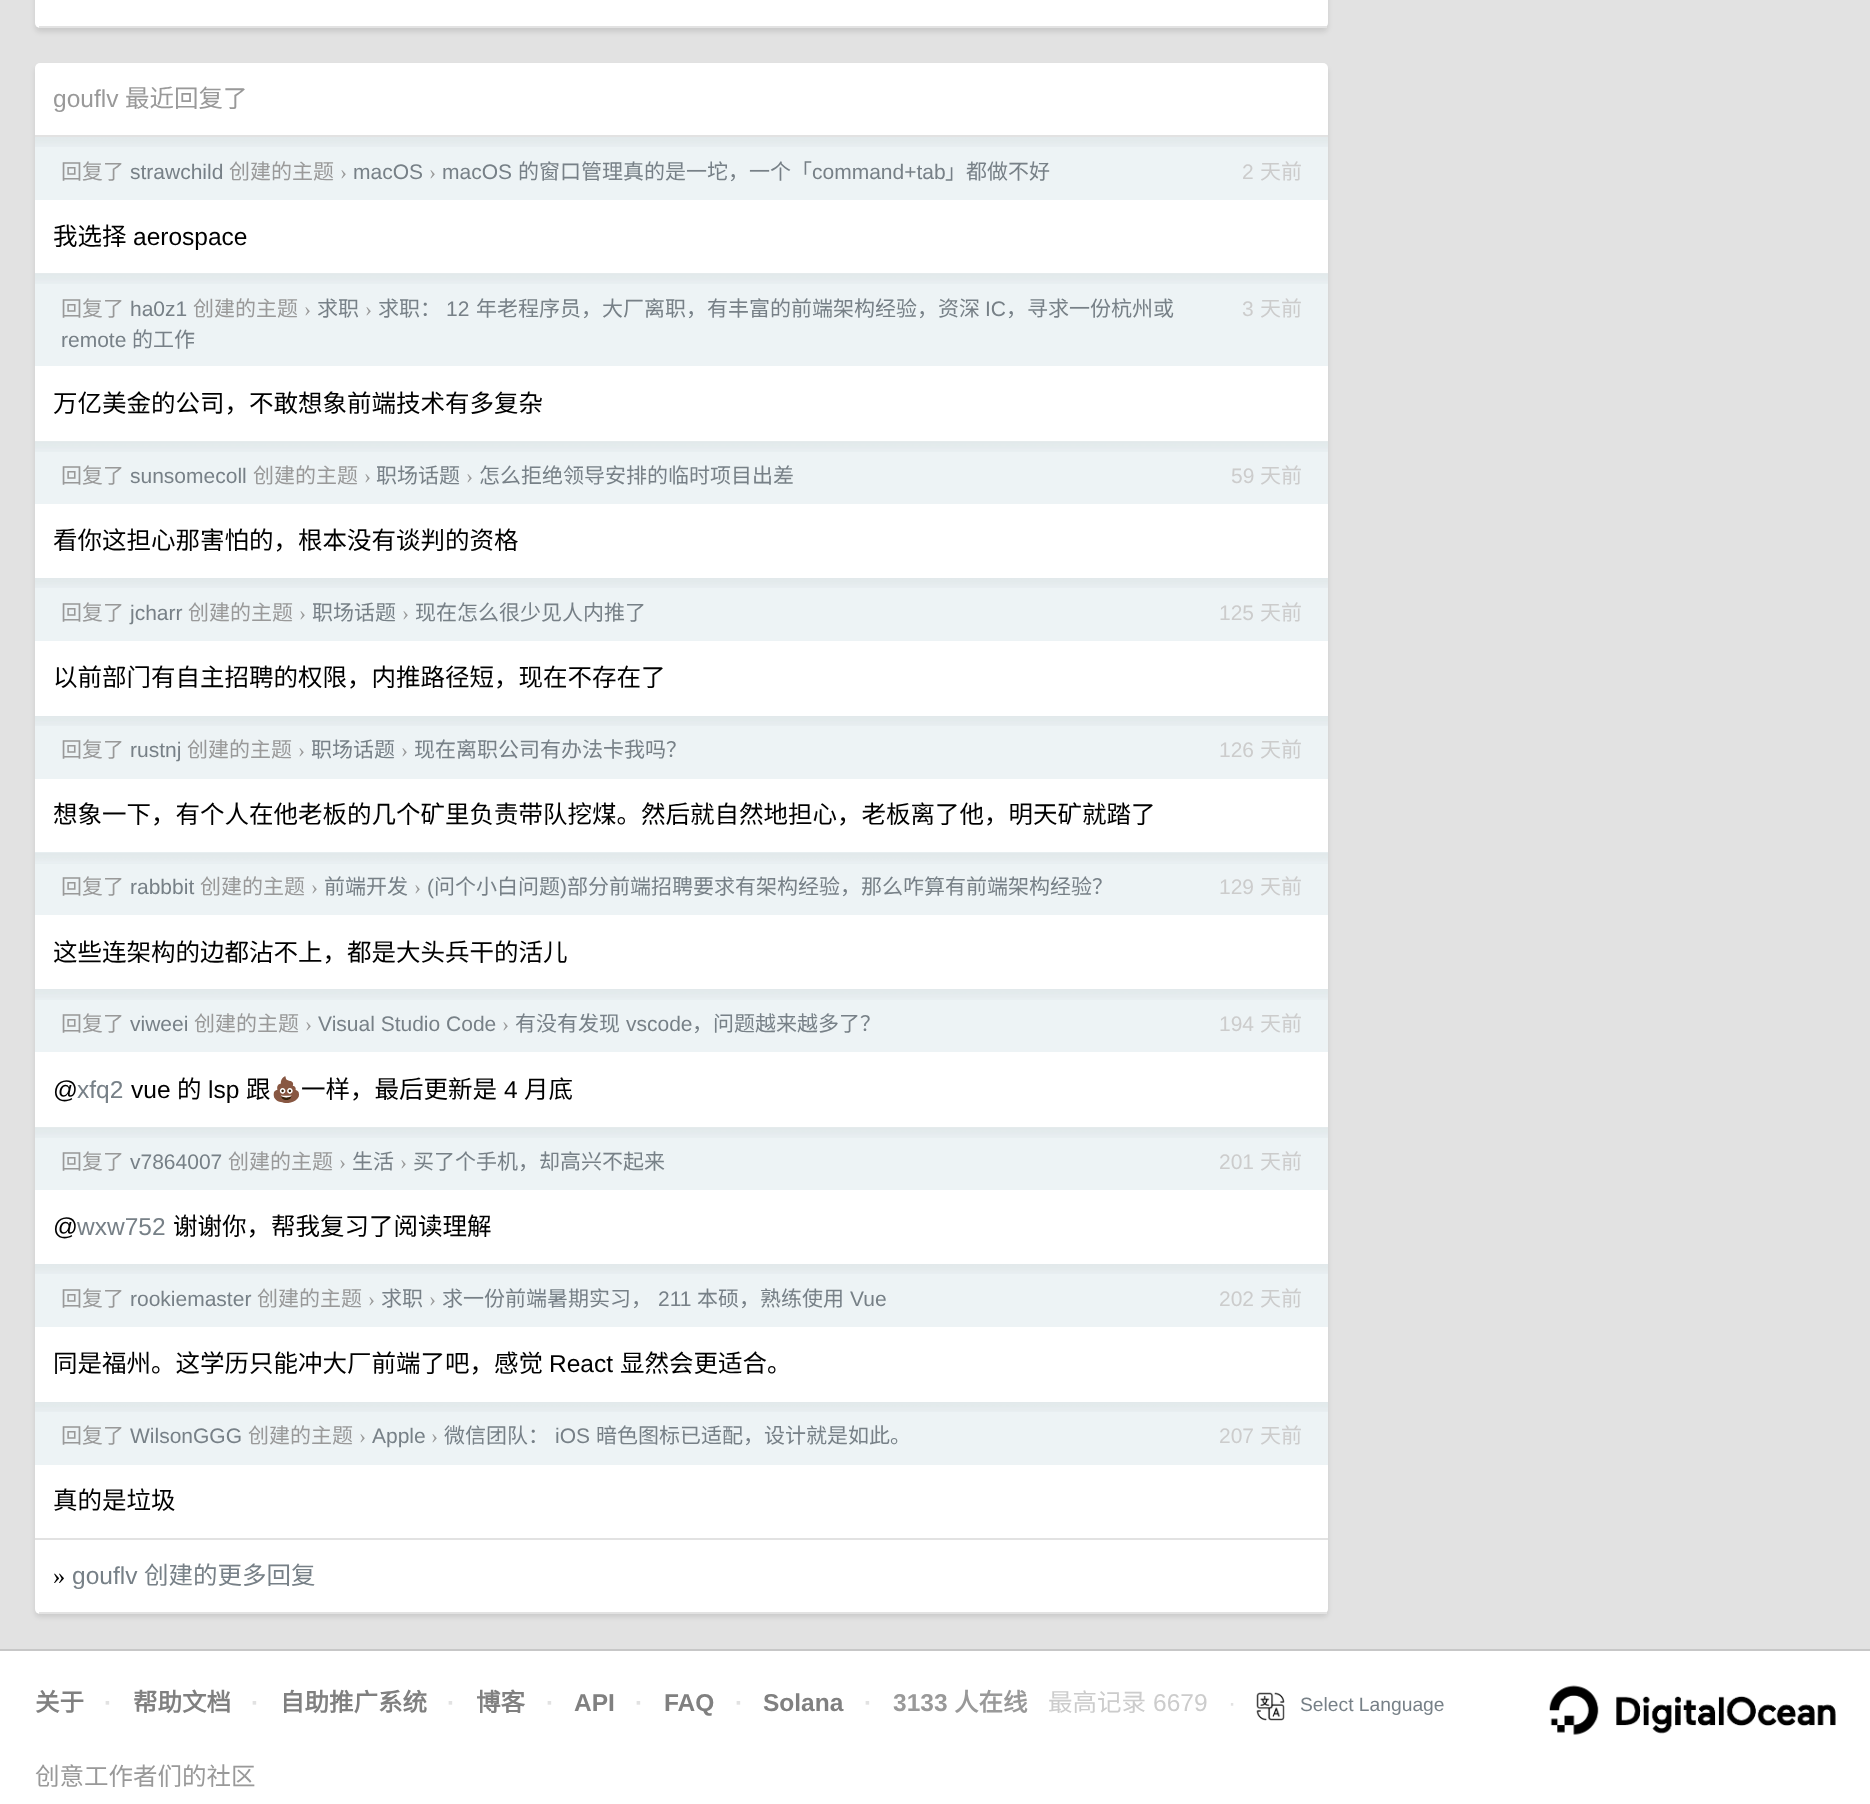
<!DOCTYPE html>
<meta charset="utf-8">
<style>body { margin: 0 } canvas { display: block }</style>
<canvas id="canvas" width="1870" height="1804"></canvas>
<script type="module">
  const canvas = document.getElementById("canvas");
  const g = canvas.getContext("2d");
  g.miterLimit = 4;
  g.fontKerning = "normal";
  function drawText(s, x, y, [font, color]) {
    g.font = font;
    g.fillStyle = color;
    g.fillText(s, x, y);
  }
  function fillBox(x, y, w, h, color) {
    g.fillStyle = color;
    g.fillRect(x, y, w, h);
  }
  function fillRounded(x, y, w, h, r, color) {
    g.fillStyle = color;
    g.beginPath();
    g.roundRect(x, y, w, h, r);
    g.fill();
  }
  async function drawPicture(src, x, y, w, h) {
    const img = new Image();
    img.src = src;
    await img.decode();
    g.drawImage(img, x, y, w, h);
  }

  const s1 = ["24.5px Liberation Sans", "#999999"];
  const s2 = ["24.5px Noto Sans CJK SC", "#999999"];
  const s3 = ["21px Noto Sans CJK SC", "#999999"];
  const s4 = ["21px Liberation Sans", "#778087"];
  const s5 = ["21px Liberation Serif", "#999999"];
  const s6 = ["21px Noto Sans CJK SC", "#778087"];
  const s7 = ["21px Liberation Sans", "#CCCCCC"];
  const s8 = ["21px Noto Sans CJK SC", "#CCCCCC"];
  const s9 = ["24.5px Noto Sans CJK SC", "#000000"];
  const s10 = ["24.5px Liberation Sans", "#000000"];
  const s11 = ["24.5px Liberation Sans", "#778087"];
  const s12 = ["24.5px Noto Color Emoji", "#000000"];
  const s13 = ["24.5px Liberation Serif", "#000000"];
  const s14 = ["24.5px Noto Sans CJK SC", "#778087"];
  const s15 = ["bold 24.5px Noto Sans CJK SC", "#808080"];
  const s16 = ["bold 24.5px Liberation Sans", "#E2E2E2"];
  const s17 = ["bold 24.5px Liberation Sans", "#808080"];
  const s18 = ["bold 24.5px Liberation Sans", "#999999"];
  const s19 = ["bold 24.5px Noto Sans CJK SC", "#999999"];
  const s20 = ["24.5px Noto Sans CJK SC", "#CCCCCC"];
  const s21 = ["24.5px Liberation Sans", "#CCCCCC"];
  const s22 = ["24.5px Liberation Sans", "#E2E2E2"];
  const s23 = ["19.25px Liberation Sans", "#778087"];

  fillBox(0, 0, 1870, 1804, "#FFFFFF");
  fillBox(0, 0, 1870, 1649, "#E2E2E2");
  g.fillStyle = "rgba(0, 0, 0, 0.1)";
  g.filter = "blur(2.5px)";
  g.beginPath();
  g.roundRect(35, -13, 1293, 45, 5);
  g.fill();
  g.filter = "none";
  fillRounded(35, -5, 1293, 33, 5, "#FFFFFF");
  fillBox(39, 26, 1288, 2, "#E2E2E2");
  g.fillStyle = "rgba(0, 0, 0, 0.1)";
  g.filter = "blur(2.5px)";
  g.beginPath();
  g.roundRect(35, 67, 1293, 1550, 5);
  g.fill();
  g.filter = "none";
  fillRounded(35, 63, 1293, 1551, 5, "#FFFFFF");
  fillBox(39, 1612, 1288, 2, "#E2E2E2");
  fillBox(35, 135, 1293, 2, "#E2E2E2");
  drawText("gouflv", 53, 107, s1);
  drawText("最近回复了", 125, 107, s2);
  fillBox(35, 137, 1293, 63, "#EDF3F5");
  await drawPicture("pic1.png", 35, 137, 1293, 10);
  drawText("回复了", 61, 179, s3);
  drawText("strawchild", 130, 179, s4);
  drawText("创建的主题", 229, 179, s3);
  drawText("›", 340, 179, s5);
  drawText("macOS", 353, 179, s4);
  drawText("›", 429, 179, s5);
  drawText("macOS", 442, 179, s4);
  drawText("的窗口管理真的是一坨，一个「", 518, 179, s6);
  drawText("command+tab", 812, 179, s4);
  drawText("」都做不好", 945, 179, s6);
  drawText("2", 1242, 179, s7);
  drawText("天前", 1260, 179, s8);
  drawText("我选择", 53, 245, s9);
  drawText("aerospace", 133, 245, s10);
  fillBox(35, 273, 1293, 93, "#EDF3F5");
  await drawPicture("pic2.png", 35, 273, 1293, 11);
  drawText("回复了", 61, 316, s3);
  drawText("ha0z1", 130, 316, s4);
  drawText("创建的主题", 193, 316, s3);
  drawText("›", 304, 316, s5);
  drawText("求职", 317, 316, s6);
  drawText("›", 365, 316, s5);
  drawText("求职：", 378, 316, s6);
  drawText("12", 446, 316, s4);
  drawText("年老程序员，大厂离职，有丰富的前端架构经验，资深", 476, 316, s6);
  drawText("IC", 985, 316, s4);
  drawText("，寻求一份杭州或", 1006, 316, s6);
  drawText("3", 1242, 316, s7);
  drawText("天前", 1260, 316, s8);
  drawText("remote", 61, 347, s4);
  drawText("的工作", 132, 347, s6);
  drawText("万亿美金的公司，不敢想象前端技术有多复杂", 53, 412, s9);
  fillBox(35, 441, 1293, 63, "#EDF3F5");
  await drawPicture("pic3.png", 35, 441, 1293, 11);
  drawText("回复了", 61, 483, s3);
  drawText("sunsomecoll", 130, 483, s4);
  drawText("创建的主题", 253, 483, s3);
  drawText("›", 364, 483, s5);
  drawText("职场话题", 376, 483, s6);
  drawText("›", 466, 483, s5);
  drawText("怎么拒绝领导安排的临时项目出差", 479, 483, s6);
  drawText("59", 1231, 483, s7);
  drawText("天前", 1260, 483, s8);
  drawText("看你这担心那害怕的，根本没有谈判的资格", 53, 549, s9);
  fillBox(35, 578, 1293, 63, "#EDF3F5");
  await drawPicture("pic1.png", 35, 578, 1293, 10);
  drawText("回复了", 61, 620, s3);
  drawText("jcharr", 130, 620, s4);
  drawText("创建的主题", 188, 620, s3);
  drawText("›", 299, 620, s5);
  drawText("职场话题", 312, 620, s6);
  drawText("›", 402, 620, s5);
  drawText("现在怎么很少见人内推了", 415, 620, s6);
  drawText("125", 1219, 620, s7);
  drawText("天前", 1260, 620, s8);
  drawText("以前部门有自主招聘的权限，内推路径短，现在不存在了", 53, 686, s9);
  fillBox(35, 716, 1293, 63, "#EDF3F5");
  await drawPicture("pic4.png", 35, 716, 1293, 10);
  drawText("回复了", 61, 757, s3);
  drawText("rustnj", 130, 757, s4);
  drawText("创建的主题", 187, 757, s3);
  drawText("›", 298, 757, s5);
  drawText("职场话题", 311, 757, s6);
  drawText("›", 401, 757, s5);
  drawText("现在离职公司有办法卡我吗？", 414, 757, s6);
  drawText("126", 1219, 757, s7);
  drawText("天前", 1260, 757, s8);
  drawText("想象一下，有个人在他老板的几个矿里负责带队挖煤。然后就自然地担心，老板离了他，明天矿就踏了", 53, 823, s9);
  fillBox(35, 852, 1293, 63, "#EDF3F5");
  await drawPicture("pic5.png", 35, 852, 1293, 12);
  drawText("回复了", 61, 894, s3);
  drawText("rabbbit", 130, 894, s4);
  drawText("创建的主题", 200, 894, s3);
  drawText("›", 311, 894, s5);
  drawText("前端开发", 324, 894, s6);
  drawText("›", 414, 894, s5);
  drawText("(", 427, 894, s4);
  drawText("问个小白问题", 434, 894, s6);
  drawText(")", 560, 894, s4);
  drawText("部分前端招聘要求有架构经验，那么咋算有前端架构经验？", 567, 894, s6);
  drawText("129", 1219, 894, s7);
  drawText("天前", 1260, 894, s8);
  drawText("这些连架构的边都沾不上，都是大头兵干的活儿", 53, 961, s9);
  fillBox(35, 989, 1293, 63, "#EDF3F5");
  await drawPicture("pic6.png", 35, 989, 1293, 11);
  drawText("回复了", 61, 1031, s3);
  drawText("viweei", 130, 1031, s4);
  drawText("创建的主题", 194, 1031, s3);
  drawText("›", 305, 1031, s5);
  drawText("Visual Studio Code", 318, 1031, s4);
  drawText("›", 502, 1031, s5);
  drawText("有没有发现", 515, 1031, s6);
  drawText("vscode", 626, 1031, s4);
  drawText("，问题越来越多了？", 692, 1031, s6);
  drawText("194", 1219, 1031, s7);
  drawText("天前", 1260, 1031, s8);
  drawText("@", 53, 1098, s10);
  drawText("xfq2", 77, 1098, s11);
  drawText("vue", 131, 1098, s10);
  drawText("的", 177, 1098, s9);
  drawText("lsp", 208, 1098, s10);
  drawText("跟", 246, 1098, s9);
  drawText("💩", 271, 1098, s12);
  drawText("一样，最后更新是", 301, 1098, s9);
  drawText("4", 504, 1098, s10);
  drawText("月底", 524, 1098, s9);
  fillBox(35, 1127, 1293, 63, "#EDF3F5");
  await drawPicture("pic2.png", 35, 1127, 1293, 11);
  drawText("回复了", 61, 1169, s3);
  drawText("v7864007", 130, 1169, s4);
  drawText("创建的主题", 228, 1169, s3);
  drawText("›", 339, 1169, s5);
  drawText("生活", 352, 1169, s6);
  drawText("›", 400, 1169, s5);
  drawText("买了个手机，却高兴不起来", 413, 1169, s6);
  drawText("201", 1219, 1169, s7);
  drawText("天前", 1260, 1169, s8);
  drawText("@", 53, 1235, s10);
  drawText("wxw752", 77, 1235, s11);
  drawText("谢谢你，帮我复习了阅读理解", 173, 1235, s9);
  fillBox(35, 1264, 1293, 63, "#EDF3F5");
  await drawPicture("pic7.png", 35, 1264, 1293, 10);
  drawText("回复了", 61, 1306, s3);
  drawText("rookiemaster", 130, 1306, s4);
  drawText("创建的主题", 257, 1306, s3);
  drawText("›", 368, 1306, s5);
  drawText("求职", 381, 1306, s6);
  drawText("›", 429, 1306, s5);
  drawText("求一份前端暑期实习，", 442, 1306, s6);
  drawText("211", 658, 1306, s4);
  drawText("本硕，熟练使用", 697, 1306, s6);
  drawText("Vue", 850, 1306, s4);
  drawText("202", 1219, 1306, s7);
  drawText("天前", 1260, 1306, s8);
  drawText("同是福州。这学历只能冲大厂前端了吧，感觉", 53, 1372, s9);
  drawText("React", 549, 1372, s10);
  drawText("显然会更适合。", 620, 1372, s9);
  fillBox(35, 1402, 1293, 63, "#EDF3F5");
  await drawPicture("pic8.png", 35, 1402, 1293, 10);
  drawText("回复了", 61, 1443, s3);
  drawText("WilsonGGG", 130, 1443, s4);
  drawText("创建的主题", 248, 1443, s3);
  drawText("›", 359, 1443, s5);
  drawText("Apple", 372, 1443, s4);
  drawText("›", 431, 1443, s5);
  drawText("微信团队：", 444, 1443, s6);
  drawText("iOS", 555, 1443, s4);
  drawText("暗色图标已适配，设计就是如此。", 596, 1443, s6);
  drawText("207", 1219, 1443, s7);
  drawText("天前", 1260, 1443, s8);
  fillBox(35, 1538, 1293, 2, "#E2E2E2");
  drawText("真的是垃圾", 53, 1509, s9);
  drawText("»", 53, 1584, s13);
  drawText("gouflv", 72, 1584, s11);
  drawText("创建的更多回复", 144, 1584, s14);
  fillBox(0, 1649, 1870, 2, "#C7C7C7");
  drawText("关于", 35, 1711, s15);
  drawText("·", 104, 1711, s16);
  drawText("帮助文档", 133, 1711, s15);
  drawText("·", 251, 1711, s16);
  drawText("自助推广系统", 280, 1711, s15);
  drawText("·", 447, 1711, s16);
  drawText("博客", 476, 1711, s15);
  drawText("·", 546, 1711, s16);
  drawText("API", 574, 1711, s17);
  drawText("·", 635, 1711, s16);
  drawText("FAQ", 664, 1711, s17);
  drawText("·", 735, 1711, s16);
  drawText("Solana", 763, 1711, s17);
  drawText("·", 864, 1711, s16);
  drawText("3133", 893, 1711, s18);
  drawText("人在线", 954, 1711, s19);
  drawText("最高记录", 1048, 1711, s20);
  drawText("6679", 1153, 1711, s21);
  drawText("·", 1228, 1711, s22);
  await drawPicture("pic9.png", 1256, 1692, 29, 29);
  drawText("Select Language", 1300, 1711, s23);
  await drawPicture("pic10.png", 1549, 1685, 287, 50);
  drawText("创意工作者们的社区", 35, 1785, s2);
</script>
